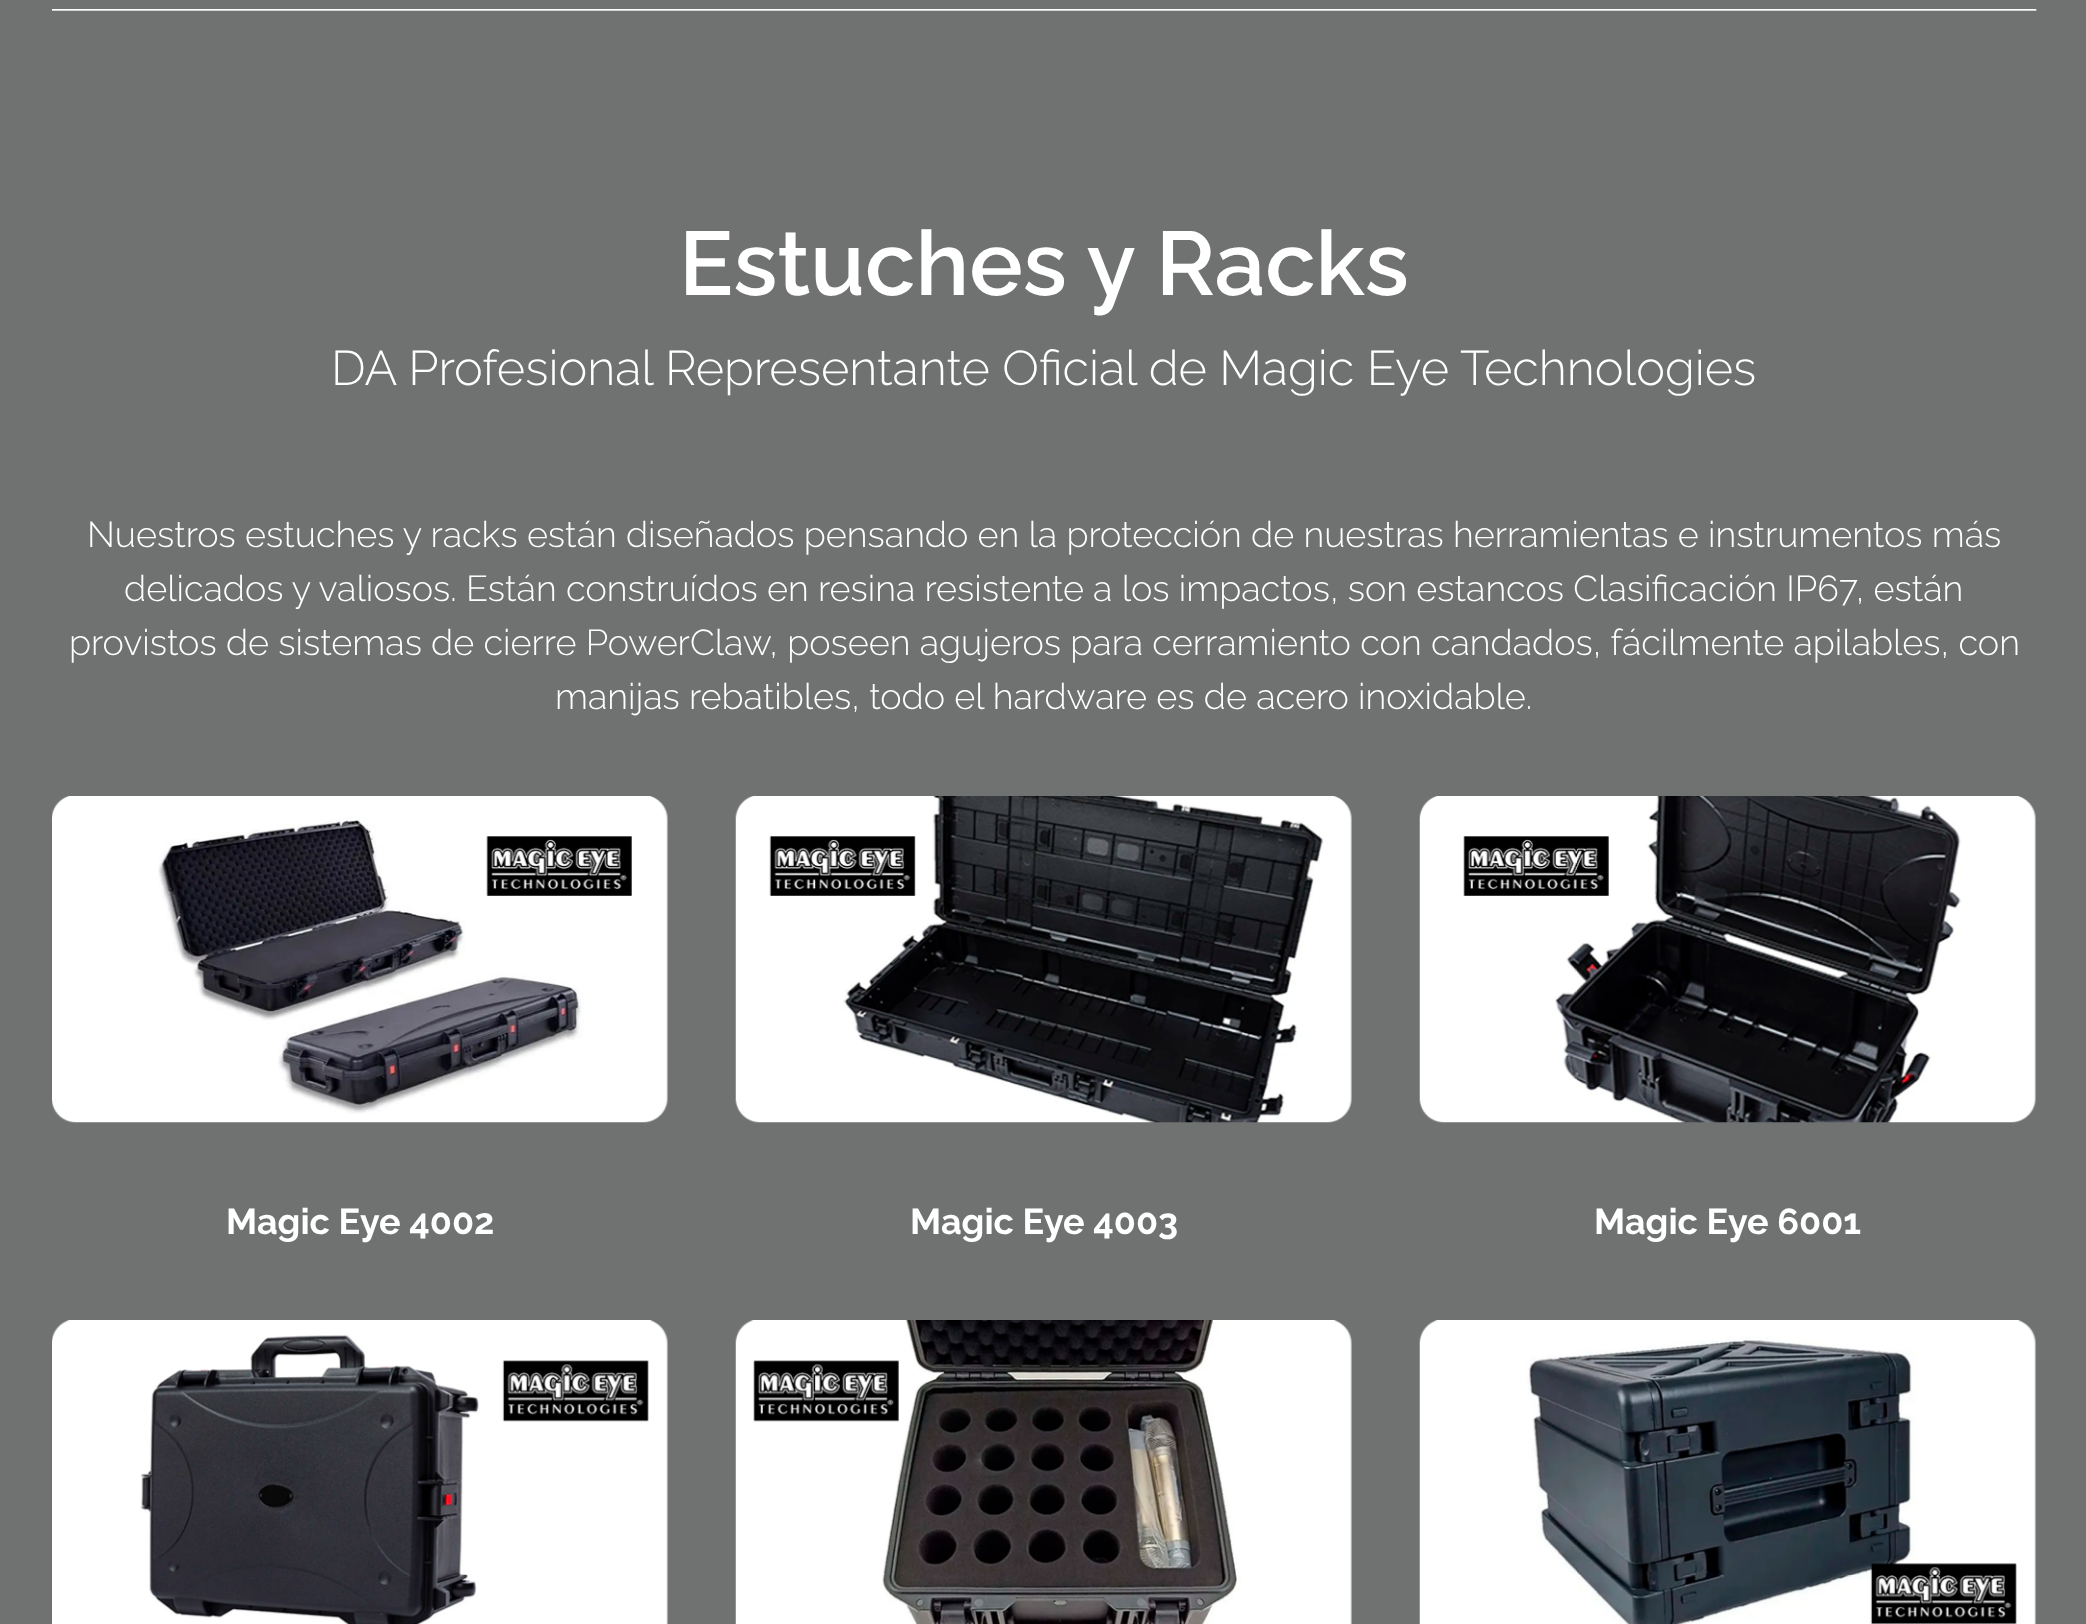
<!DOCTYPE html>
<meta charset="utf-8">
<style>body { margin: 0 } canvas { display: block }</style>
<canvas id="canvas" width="2086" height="1624"></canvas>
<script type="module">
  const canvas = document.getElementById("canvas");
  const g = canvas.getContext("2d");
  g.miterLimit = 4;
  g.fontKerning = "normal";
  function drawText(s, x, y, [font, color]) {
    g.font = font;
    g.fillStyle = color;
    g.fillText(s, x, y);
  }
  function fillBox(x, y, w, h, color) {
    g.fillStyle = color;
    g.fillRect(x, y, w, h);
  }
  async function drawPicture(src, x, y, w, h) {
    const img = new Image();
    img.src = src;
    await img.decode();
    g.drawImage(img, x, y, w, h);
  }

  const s1 = ["600 90px Raleway", "#FFFFFF"];
  const s2 = ["300 48.6px Raleway", "#FFFFFF"];
  const s3 = ["300 36px Raleway", "#FFFFFF"];
  const s4 = ["bold 36px Raleway", "#FFFFFF"];

  fillBox(0, 0, 2086, 1624, "#6F7271");
  await drawPicture("pic1.png", 52, 9, 1985, 2);
  drawText("Estuches y Racks", 679, 295, s1);
  drawText("DA Profesional Representante Oficial de Magic Eye Technologies", 331, 385, s2);
  drawText("Nuestros estuches y racks están diseñados pensando en la protección de nuestras herramientas e instrumentos más", 87, 547, s3);
  drawText("delicados y valiosos. Están construídos en resina resistente a los impactos, son estancos Clasificación IP67, están", 124, 601, s3);
  drawText("provistos de sistemas de cierre PowerClaw, poseen agujeros para cerramiento con candados, fácilmente apilables, con", 69, 655, s3);
  drawText("manijas rebatibles, todo el hardware es de acero inoxidable.", 555, 709, s3);
  await drawPicture("pic2.png", 52, 796, 616, 327);
  drawText("Magic Eye 4002", 226, 1234, s4);
  await drawPicture("pic3.png", 735, 796, 617, 327);
  drawText("Magic Eye 4003", 910, 1234, s4);
  await drawPicture("pic4.png", 1419, 796, 617, 327);
  drawText("Magic Eye 6001", 1594, 1234, s4);
  await drawPicture("pic5.png", 52, 1320, 616, 304);
  await drawPicture("pic6.png", 735, 1320, 617, 304);
  await drawPicture("pic7.png", 1419, 1320, 617, 304);
</script>
